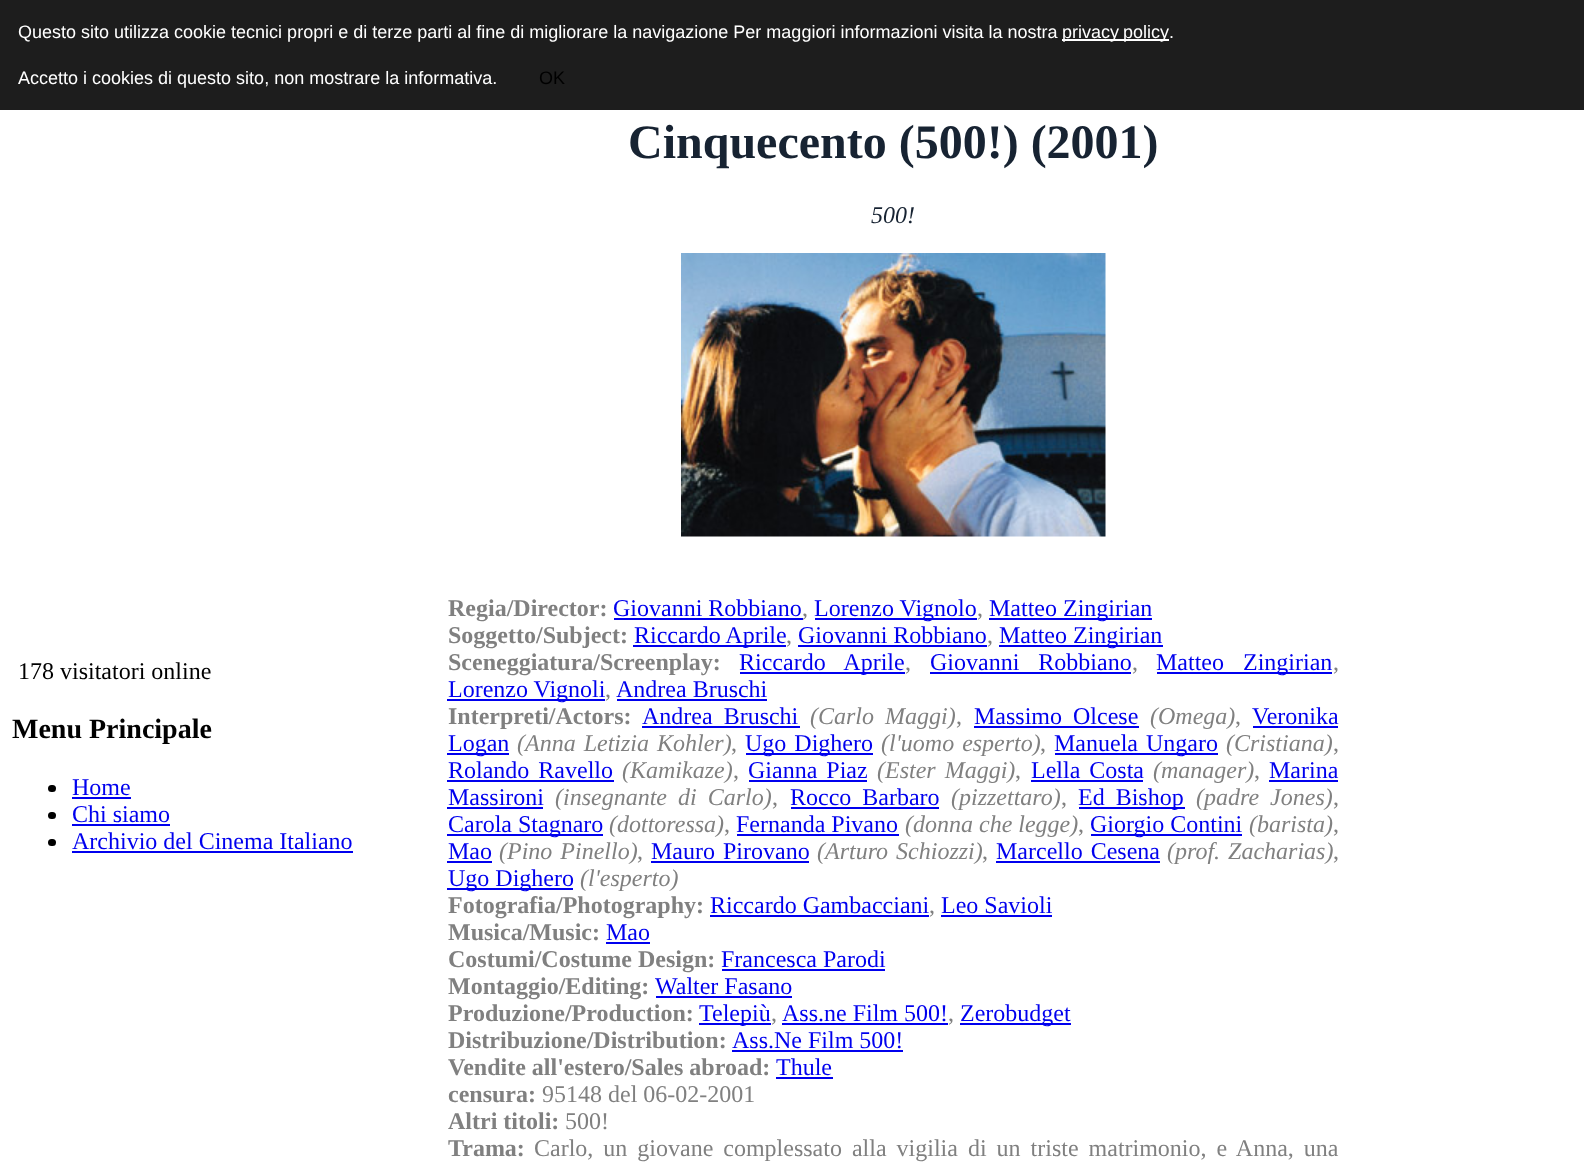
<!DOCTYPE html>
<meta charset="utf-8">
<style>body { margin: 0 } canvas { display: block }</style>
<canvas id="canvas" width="1584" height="1172"></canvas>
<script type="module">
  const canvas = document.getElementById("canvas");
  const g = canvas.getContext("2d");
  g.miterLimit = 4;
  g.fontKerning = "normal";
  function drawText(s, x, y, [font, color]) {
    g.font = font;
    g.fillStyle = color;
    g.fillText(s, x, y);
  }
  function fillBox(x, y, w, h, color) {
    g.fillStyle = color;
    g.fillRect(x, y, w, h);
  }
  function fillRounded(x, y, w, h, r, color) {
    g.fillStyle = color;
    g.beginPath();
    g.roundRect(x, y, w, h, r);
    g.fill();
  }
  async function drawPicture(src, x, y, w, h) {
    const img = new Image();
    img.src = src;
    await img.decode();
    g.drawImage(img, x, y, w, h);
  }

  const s1 = ["18px Liberation Sans", "#FFFFFF"];
  const s2 = ["18px Liberation Sans", "#000000"];
  const s3 = ["24px Liberation Serif", "#000000"];
  const s4 = ["bold 28px Liberation Serif", "#000000"];
  const s5 = ["24px Liberation Serif", "#0000EE"];
  const s6 = ["bold 48px Liberation Serif", "#172332"];
  const s7 = ["italic 24px Liberation Serif", "#172332"];
  const s8 = ["bold 24px Liberation Serif", "#808080"];
  const s9 = ["24px Liberation Serif", "#808080"];
  const s10 = ["italic 24px Liberation Serif", "#808080"];

  fillBox(0, 0, 1584, 1172, "#FFFFFF");
  fillBox(0, 0, 1584, 110, "#1D1D1D");
  drawText("Questo sito utilizza cookie tecnici propri e di terze parti al fine di migliorare la navigazione Per maggiori informazioni visita la nostra", 18, 38, s1);
  fillBox(1062, 39, 107, 2, "#FFFFFF");
  g.wordSpacing = "-1px";
  drawText("privacy policy", 1062, 38, s1);
  g.wordSpacing = "0px";
  drawText(".", 1169, 38, s1);
  drawText("Accetto i cookies di questo sito, non mostrare la informativa.", 18, 84, s1);
  drawText("OK", 539, 84, s2);
  drawText("178 visitatori online", 18, 679, s3);
  drawText("Menu Principale", 12, 738, s4);
  fillRounded(48, 785, 8, 7, 3.5, "#000000");
  drawText("Home", 72, 795, s5);
  fillBox(72, 797, 59, 2, "#0000EE");
  fillRounded(48, 812, 8, 7, 3.5, "#000000");
  drawText("Chi siamo", 72, 822, s5);
  fillBox(72, 824, 98, 2, "#0000EE");
  fillRounded(48, 839, 8, 7, 3.5, "#000000");
  drawText("Archivio del Cinema Italiano", 72, 849, s5);
  fillBox(72, 851, 281, 2, "#0000EE");
  drawText("Cinquecento (500!) (2001)", 628, 158, s6);
  drawText("500!", 871, 223, s7);
  await drawPicture("pic1.png", 681, 253, 425, 284);
  drawText("Regia/Director:", 448, 616, s8);
  drawText("Giovanni Robbiano", 613, 616, s5);
  fillBox(614, 618, 189, 2, "#0000EE");
  drawText(",", 802, 616, s9);
  fillBox(815, 618, 162, 2, "#0000EE");
  drawText("Lorenzo Vignolo", 814, 616, s5);
  drawText(",", 977, 616, s9);
  fillBox(989, 618, 163, 2, "#0000EE");
  drawText("Matteo Zingirian", 989, 616, s5);
  drawText("Soggetto/Subject:", 448, 643, s8);
  fillBox(633, 645, 153, 2, "#0000EE");
  drawText("Riccardo Aprile", 634, 643, s5);
  drawText(",", 786, 643, s9);
  drawText("Giovanni Robbiano", 798, 643, s5);
  drawText(",", 987, 643, s9);
  fillBox(798, 645, 189, 2, "#0000EE");
  fillBox(999, 645, 164, 2, "#0000EE");
  drawText("Matteo Zingirian", 999, 643, s5);
  drawText("Sceneggiatura/Screenplay:", 448, 670, s8);
  fillBox(740, 672, 165, 2, "#0000EE");
  g.wordSpacing = "13px";
  drawText("Riccardo Aprile", 739, 670, s5);
  g.wordSpacing = "0px";
  drawText(",", 905, 670, s9);
  g.wordSpacing = "13px";
  drawText("Giovanni Robbiano", 930, 670, s5);
  g.wordSpacing = "0px";
  drawText(",", 1132, 670, s9);
  fillBox(930, 672, 201, 2, "#0000EE");
  fillBox(1157, 672, 175, 2, "#0000EE");
  g.wordSpacing = "13px";
  drawText("Matteo Zingirian", 1156, 670, s5);
  g.wordSpacing = "0px";
  drawText(",", 1333, 670, s9);
  fillBox(447, 699, 158, 2, "#0000EE");
  drawText("Lorenzo Vignoli", 448, 697, s5);
  drawText(",", 605, 697, s9);
  fillBox(617, 699, 150, 2, "#0000EE");
  drawText("Andrea Bruschi", 616, 697, s5);
  drawText("Interpreti/Actors:", 448, 724, s8);
  g.wordSpacing = "5px";
  drawText("Andrea Bruschi", 642, 724, s5);
  fillBox(642, 726, 158, 2, "#0000EE");
  drawText("(Carlo Maggi)", 810, 724, s10);
  g.wordSpacing = "0px";
  drawText(",", 956, 724, s9);
  fillBox(974, 726, 165, 2, "#0000EE");
  g.wordSpacing = "5px";
  drawText("Massimo Olcese", 974, 724, s5);
  g.wordSpacing = "0px";
  drawText("(Omega)", 1150, 724, s10);
  drawText(",", 1235, 724, s9);
  fillBox(1253, 726, 85, 2, "#0000EE");
  drawText("Veronika", 1252, 724, s5);
  fillBox(447, 753, 62, 2, "#0000EE");
  drawText("Logan", 448, 751, s5);
  g.wordSpacing = "2px";
  drawText("(Anna Letizia Kohler)", 517, 751, s10);
  g.wordSpacing = "0px";
  drawText(",", 731, 751, s9);
  fillBox(746, 753, 127, 2, "#0000EE");
  g.wordSpacing = "2px";
  drawText("Ugo Dighero", 745, 751, s5);
  drawText("(l'uomo esperto)", 881, 751, s10);
  g.wordSpacing = "0px";
  drawText(",", 1040, 751, s9);
  fillBox(1055, 753, 163, 2, "#0000EE");
  g.wordSpacing = "2px";
  drawText("Manuela Ungaro", 1054, 751, s5);
  g.wordSpacing = "0px";
  drawText("(Cristiana)", 1226, 751, s10);
  drawText(",", 1333, 751, s9);
  g.wordSpacing = "3px";
  drawText("Rolando Ravello", 448, 778, s5);
  fillBox(447, 780, 167, 2, "#0000EE");
  g.wordSpacing = "0px";
  drawText("(Kamikaze)", 622, 778, s10);
  drawText(",", 733, 778, s9);
  fillBox(749, 780, 118, 2, "#0000EE");
  g.wordSpacing = "3px";
  drawText("Gianna Piaz", 748, 778, s5);
  drawText("(Ester Maggi)", 877, 778, s10);
  g.wordSpacing = "0px";
  drawText(",", 1015, 778, s9);
  fillBox(1031, 780, 112, 2, "#0000EE");
  g.wordSpacing = "3px";
  drawText("Lella Costa", 1031, 778, s5);
  g.wordSpacing = "0px";
  drawText("(manager)", 1153, 778, s10);
  drawText(",", 1254, 778, s9);
  fillBox(1269, 780, 69, 2, "#0000EE");
  drawText("Marina", 1269, 778, s5);
  drawText("Massironi", 448, 805, s5);
  fillBox(447, 807, 96, 2, "#0000EE");
  g.wordSpacing = "5px";
  drawText("(insegnante di Carlo)", 555, 805, s10);
  g.wordSpacing = "0px";
  drawText(",", 772, 805, s9);
  fillBox(791, 807, 148, 2, "#0000EE");
  g.wordSpacing = "5px";
  drawText("Rocco Barbaro", 790, 805, s5);
  g.wordSpacing = "0px";
  drawText("(pizzettaro)", 951, 805, s10);
  drawText(",", 1061, 805, s9);
  fillBox(1079, 807, 106, 2, "#0000EE");
  g.wordSpacing = "5px";
  drawText("Ed Bishop", 1078, 805, s5);
  drawText("(padre Jones)", 1196, 805, s10);
  g.wordSpacing = "0px";
  drawText(",", 1333, 805, s9);
  fillBox(447, 834, 156, 2, "#0000EE");
  drawText("Carola Stagnaro", 448, 832, s5);
  drawText("(dottoressa)", 609, 832, s10);
  drawText(",", 724, 832, s9);
  fillBox(737, 834, 162, 2, "#0000EE");
  drawText("Fernanda Pivano", 736, 832, s5);
  drawText("(donna che legge)", 905, 832, s10);
  drawText(",", 1078, 832, s9);
  fillBox(1091, 834, 151, 2, "#0000EE");
  drawText("Giorgio Contini", 1090, 832, s5);
  drawText("(barista)", 1249, 832, s10);
  drawText(",", 1333, 832, s9);
  drawText("Mao", 448, 859, s5);
  fillBox(447, 861, 45, 2, "#0000EE");
  g.wordSpacing = "2px";
  drawText("(Pino Pinello)", 499, 859, s10);
  g.wordSpacing = "0px";
  drawText(",", 637, 859, s9);
  fillBox(651, 861, 158, 2, "#0000EE");
  g.wordSpacing = "2px";
  drawText("Mauro Pirovano", 651, 859, s5);
  drawText("(Arturo Schiozzi)", 817, 859, s10);
  g.wordSpacing = "0px";
  drawText(",", 982, 859, s9);
  fillBox(996, 861, 164, 2, "#0000EE");
  g.wordSpacing = "2px";
  drawText("Marcello Cesena", 996, 859, s5);
  drawText("(prof. Zacharias)", 1167, 859, s10);
  g.wordSpacing = "0px";
  drawText(",", 1333, 859, s9);
  fillBox(447, 888, 126, 2, "#0000EE");
  drawText("Ugo Dighero", 448, 886, s5);
  drawText("(l'esperto)", 580, 886, s10);
  drawText("Fotografia/Photography:", 448, 913, s8);
  drawText("Riccardo Gambacciani", 710, 913, s5);
  drawText(",", 929, 913, s9);
  fillBox(710, 915, 219, 2, "#0000EE");
  fillBox(941, 915, 111, 2, "#0000EE");
  drawText("Leo Savioli", 941, 913, s5);
  drawText("Musica/Music:", 448, 940, s8);
  drawText("Mao", 606, 940, s5);
  fillBox(606, 942, 44, 2, "#0000EE");
  drawText("Costumi/Costume Design:", 448, 967, s8);
  drawText("Francesca Parodi", 721, 967, s5);
  fillBox(722, 969, 163, 2, "#0000EE");
  drawText("Montaggio/Editing:", 448, 994, s8);
  drawText("Walter Fasano", 655, 994, s5);
  fillBox(656, 996, 136, 2, "#0000EE");
  drawText("Produzione/Production:", 448, 1021, s8);
  fillBox(699, 1023, 72, 2, "#0000EE");
  drawText("Telepiù", 699, 1021, s5);
  drawText(",", 771, 1021, s9);
  drawText("Ass.ne Film 500!", 782, 1021, s5);
  drawText(",", 948, 1021, s9);
  fillBox(782, 1023, 166, 2, "#0000EE");
  fillBox(960, 1023, 111, 2, "#0000EE");
  drawText("Zerobudget", 960, 1021, s5);
  drawText("Distribuzione/Distribution:", 448, 1048, s8);
  drawText("Ass.Ne Film 500!", 732, 1048, s5);
  fillBox(732, 1050, 171, 2, "#0000EE");
  drawText("Vendite all'estero/Sales abroad:", 448, 1075, s8);
  drawText("Thule", 776, 1075, s5);
  fillBox(776, 1077, 57, 2, "#0000EE");
  drawText("censura:", 448, 1102, s8);
  drawText("95148 del 06-02-2001", 542, 1102, s9);
  drawText("Altri titoli:", 448, 1129, s8);
  drawText("500!", 565, 1129, s9);
  drawText("Trama:", 448, 1156, s8);
  g.wordSpacing = "4px";
  drawText("Carlo, un giovane complessato alla vigilia di un triste matrimonio, e Anna, una", 534, 1156, s9);
</script>
